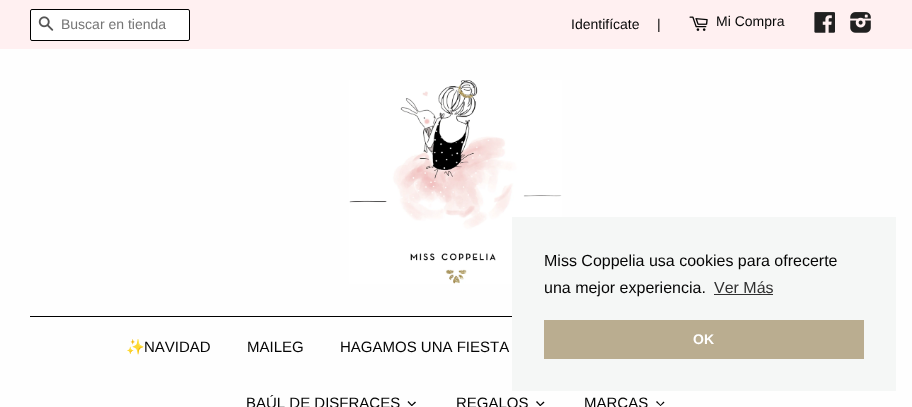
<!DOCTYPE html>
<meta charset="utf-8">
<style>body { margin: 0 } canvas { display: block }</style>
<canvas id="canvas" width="912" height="407"></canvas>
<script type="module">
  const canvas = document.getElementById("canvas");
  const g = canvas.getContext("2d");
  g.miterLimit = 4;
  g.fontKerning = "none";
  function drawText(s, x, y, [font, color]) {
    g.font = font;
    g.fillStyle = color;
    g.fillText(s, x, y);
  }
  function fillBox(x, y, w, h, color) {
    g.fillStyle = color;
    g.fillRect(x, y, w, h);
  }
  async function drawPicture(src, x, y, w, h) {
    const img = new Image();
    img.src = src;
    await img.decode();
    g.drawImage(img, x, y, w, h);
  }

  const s1 = ["14px Liberation Sans", "#757575"];
  const s2 = ["14px Liberation Sans", "#050505"];
  const s3 = ["16px Liberation Sans", "#050505"];
  const s4 = ["16px Liberation Sans", "#313131"];
  const s5 = ["bold 14px Liberation Sans", "#FFFFFF"];
  const s6 = ["15px Noto Color Emoji", "#050505"];
  const s7 = ["15px Liberation Sans", "#050505"];

  fillBox(0, 0, 912, 407, "#FEFEFE");
  fillBox(0, 0, 912, 49, "#FFF0F1");
  g.fillStyle = "#FFFFFF";
  g.beginPath();
  g.roundRect(30.5, 9.5, 159, 31, 1.5);
  g.fill();
  g.strokeStyle = "#000000";
  g.stroke();
  await drawPicture("pic1.png", 38, 16, 16, 15);
  drawText("Buscar en tienda", 61, 29, s1);
  drawText("Identifícate", 571, 29, s2);
  drawText("|", 657, 29, s2);
  await drawPicture("pic2.png", 689, 16, 19, 15);
  drawText("Mi Compra", 716, 26, s2);
  await drawPicture("pic3.png", 814, 12, 21, 21);
  await drawPicture("pic4.png", 850, 12, 21, 21);
  await drawPicture("pic5.png", 349, 80, 213, 204);
  fillBox(512, 217, 384, 174, "#F5F7F6");
  drawText("Miss Coppelia usa cookies para ofrecerte", 544, 266, s3);
  drawText("una mejor experiencia.", 544, 293, s3);
  drawText("Ver Más", 714, 293, s4);
  fillBox(714, 294, 59, 1, "#313131");
  fillBox(544, 320, 320, 39, "#BAAD90");
  drawText("OK", 693, 344, s5);
  fillBox(30, 316, 482, 1, "#000000");
  drawText("✨", 126, 352, s6);
  drawText("NAVIDAD", 144, 352, s7);
  drawText("MAILEG", 247, 352, s7);
  drawText("HAGAMOS UNA FIESTA", 340, 352, s7);
  drawText("BAÚL DE DISFRACES", 246, 408, s7);
  g.fillStyle = "#000000";
  g.beginPath();
  g.moveTo(415, 401.5);
  g.lineTo(416, 402.5);
  g.lineTo(412, 406);
  g.lineTo(411, 405.5);
  g.closePath();
  g.fill();
  g.beginPath();
  g.moveTo(408.5, 401);
  g.lineTo(412.5, 405.5);
  g.lineTo(411.5, 406);
  g.lineTo(407.5, 402);
  g.closePath();
  g.fill();
  drawText("REGALOS", 456, 408, s7);
  g.fillStyle = "#000000";
  g.beginPath();
  g.moveTo(543.5, 401.5);
  g.lineTo(544.5, 402.5);
  g.lineTo(540.5, 406);
  g.lineTo(539.5, 405.5);
  g.closePath();
  g.fill();
  g.beginPath();
  g.moveTo(537, 401);
  g.lineTo(541, 405.5);
  g.lineTo(540, 406);
  g.lineTo(536, 402);
  g.closePath();
  g.fill();
  drawText("MARCAS", 584, 408, s7);
  g.fillStyle = "#000000";
  g.beginPath();
  g.moveTo(663.5, 401.5);
  g.lineTo(664.5, 402.5);
  g.lineTo(660.5, 406);
  g.lineTo(660, 405.5);
  g.closePath();
  g.fill();
  g.beginPath();
  g.moveTo(657, 401);
  g.lineTo(661, 405.5);
  g.lineTo(660.5, 406);
  g.lineTo(656, 402);
  g.closePath();
  g.fill();
</script>
